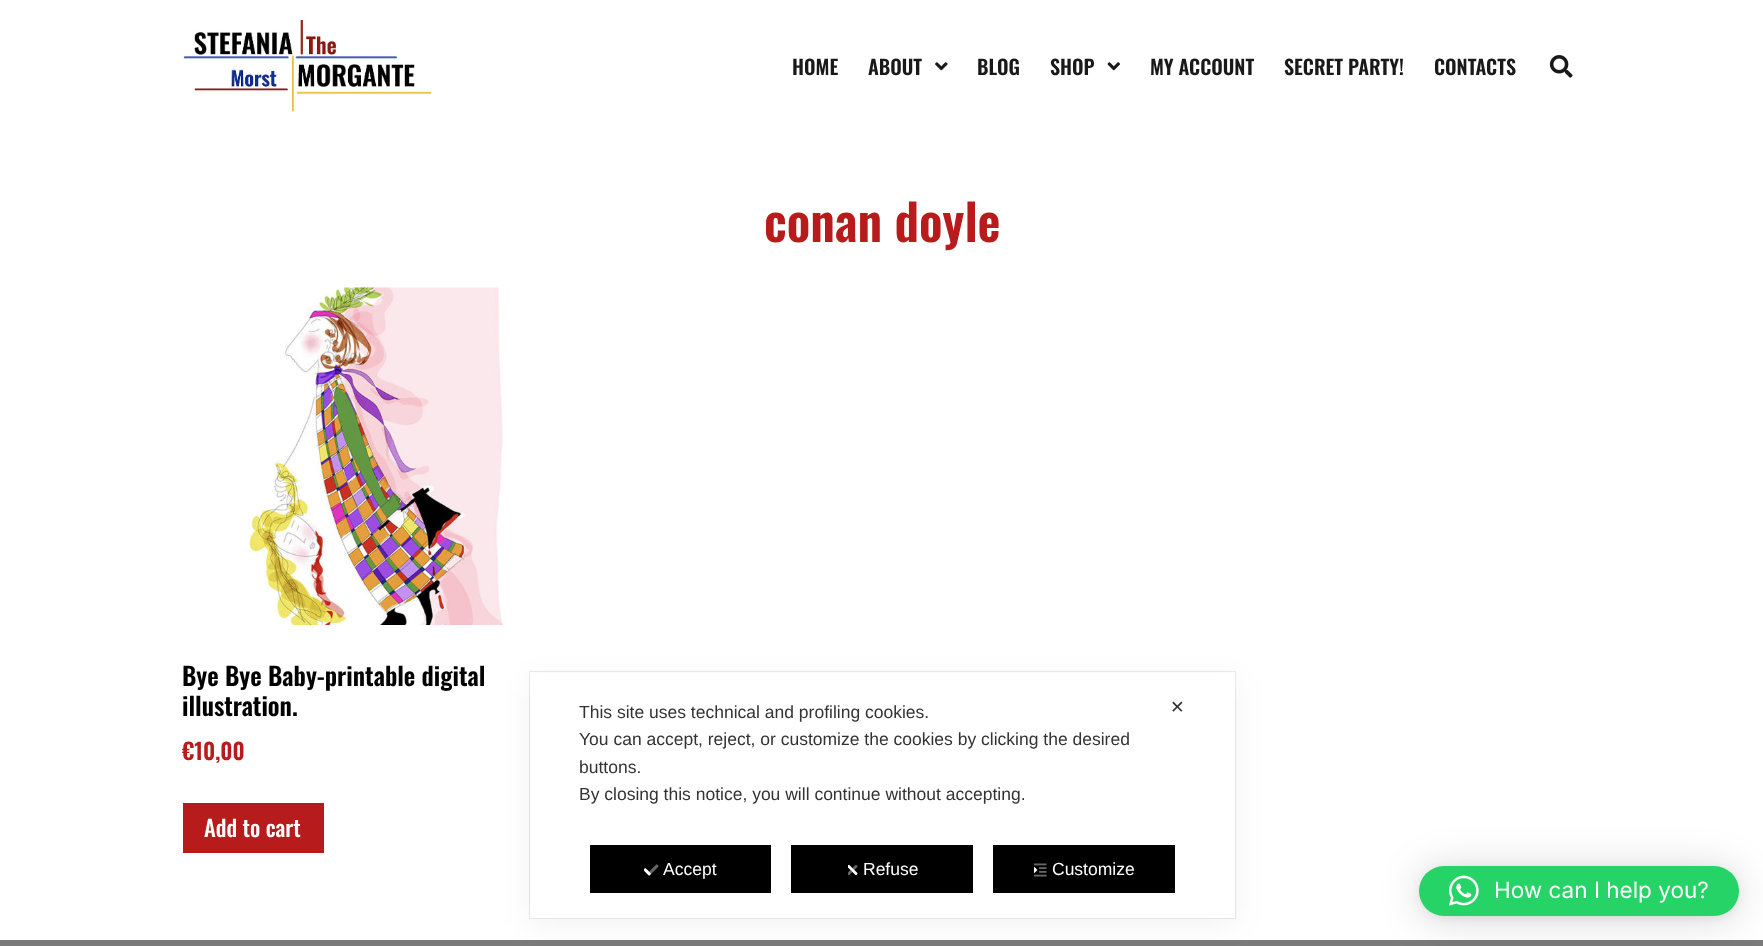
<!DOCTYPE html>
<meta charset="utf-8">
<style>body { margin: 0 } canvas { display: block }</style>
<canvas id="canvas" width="1763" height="946"></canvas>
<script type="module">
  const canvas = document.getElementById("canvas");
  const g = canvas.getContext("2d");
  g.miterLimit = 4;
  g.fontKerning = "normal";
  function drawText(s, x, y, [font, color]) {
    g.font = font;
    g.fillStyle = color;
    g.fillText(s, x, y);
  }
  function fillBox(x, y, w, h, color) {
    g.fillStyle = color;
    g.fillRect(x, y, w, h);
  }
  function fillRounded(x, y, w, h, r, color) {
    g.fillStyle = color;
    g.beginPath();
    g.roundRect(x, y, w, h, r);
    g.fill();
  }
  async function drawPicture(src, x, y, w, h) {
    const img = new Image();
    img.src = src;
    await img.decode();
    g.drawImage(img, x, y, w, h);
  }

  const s1 = ["600 20px Oswald", "#191919"];
  const s2 = ["600 50px Oswald", "#B71B1B"];
  const s3 = ["600 25px Oswald", "#000000"];
  const s4 = ["600 22.5px Oswald", "#B71B1B"];
  const s5 = ["500 22.5px Oswald", "#FFFFFF"];
  const s6 = ["17.5px Liberation Sans", "#333333"];
  const s7 = ["17.5px Liberation Sans", "#FFFFFF"];
  const s8 = ["17.5px DejaVu Sans", "#333333"];
  const s9 = ["22.5px Inter", "#FFFFFF"];

  fillBox(0, 0, 1763, 946, "#FFFFFF");
  await drawPicture("pic1.png", 183, 20, 250, 92);
  drawText("HOME", 792, 75, s1);
  drawText("ABOUT", 868, 75, s1);
  await drawPicture("pic2.png", 935, 62, 13, 9);
  drawText("BLOG", 977, 75, s1);
  drawText("SHOP", 1050, 75, s1);
  await drawPicture("pic3.png", 1107, 62, 13, 9);
  drawText("MY ACCOUNT", 1150, 75, s1);
  drawText("SECRET PARTY!", 1284, 75, s1);
  drawText("CONTACTS", 1434, 75, s1);
  await drawPicture("pic4.png", 1549, 55, 24, 23);
  drawText("conan doyle", 764, 242, s2);
  await drawPicture("pic5.png", 242, 287, 263, 338);
  drawText("Bye Bye Baby-printable digital", 182, 686, s3);
  drawText("illustration.", 182, 716, s3);
  drawText("€10,00", 182, 760, s4);
  fillBox(183, 803, 141, 50, "#B71B1B");
  drawText("Add to cart", 204, 837, s5);
  g.strokeStyle = "#EBEBEB";
  g.strokeRect(529.5, 671.5, 706, 247);
  fillBox(0, 940, 1763, 6, "#7A7A7A");
  g.fillStyle = "rgba(0, 0, 0, 0.05)";
  g.filter = "blur(15px)";
  g.beginPath();
  g.rect(530, 680, 705, 245);
  g.fill();
  g.filter = "none";
  fillBox(530, 673, 705, 245, "#FFFFFF");
  drawText("This site uses technical and profiling cookies.", 579, 718, s6);
  drawText("You can accept, reject, or customize the cookies by clicking the desired", 579, 745, s6);
  drawText("buttons.", 579, 773, s6);
  drawText("By closing this notice, you will continue without accepting.", 579, 800, s6);
  fillBox(590, 845, 181, 48, "#000000");
  await drawPicture("pic6.png", 644, 864, 15, 12);
  drawText("Accept", 663, 875, s7);
  fillBox(791, 845, 182, 48, "#000000");
  await drawPicture("pic7.png", 848, 864, 10, 12);
  drawText("Refuse", 863, 875, s7);
  fillBox(993, 845, 182, 48, "#000000");
  await drawPicture("pic8.png", 1034, 863, 13, 14);
  drawText("Customize", 1052, 875, s7);
  drawText("✕", 1170, 713, s8);
  g.fillStyle = "rgba(0, 0, 0, 0.16)";
  g.filter = "blur(20px)";
  g.beginPath();
  g.roundRect(1419, 869, 320, 50, 25);
  g.fill();
  g.filter = "none";
  g.fillStyle = "rgba(0, 0, 0, 0.06)";
  g.filter = "blur(4px)";
  g.beginPath();
  g.roundRect(1419, 868, 320, 50, 25);
  g.fill();
  g.filter = "none";
  fillRounded(1419, 866, 320, 50, 25, "#25D366");
  await drawPicture("pic9.png", 1448, 875, 31, 31);
  drawText("How can I help you?", 1494, 898, s9);
</script>
